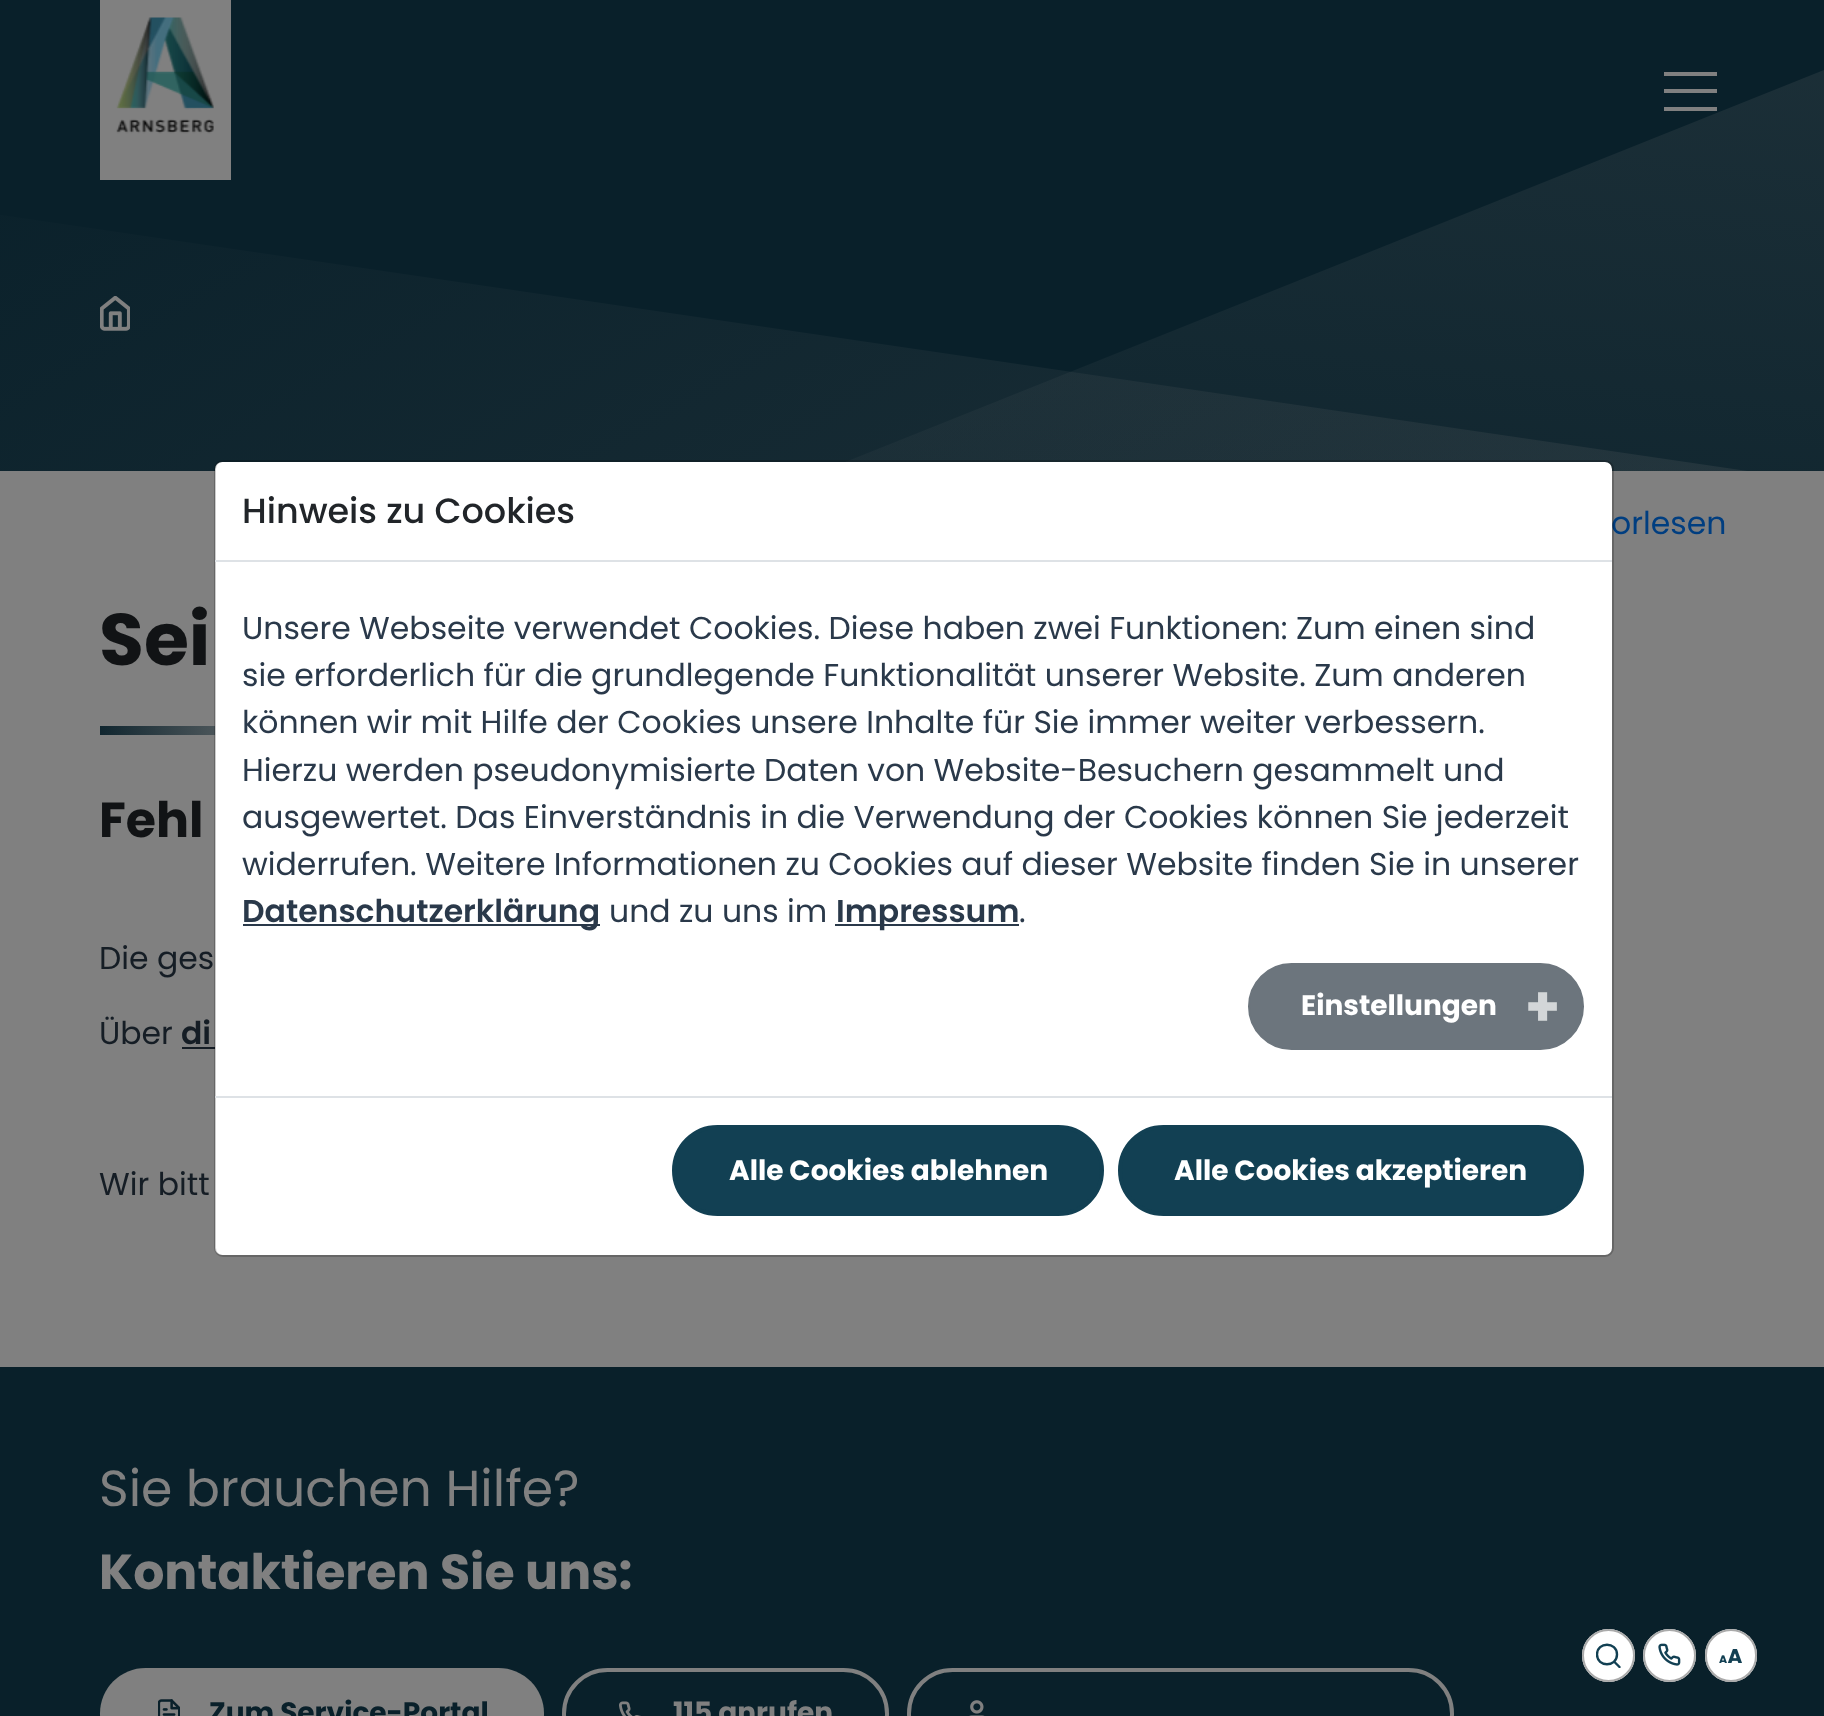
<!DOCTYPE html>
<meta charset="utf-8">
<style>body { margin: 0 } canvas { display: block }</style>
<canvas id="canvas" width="1824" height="1716"></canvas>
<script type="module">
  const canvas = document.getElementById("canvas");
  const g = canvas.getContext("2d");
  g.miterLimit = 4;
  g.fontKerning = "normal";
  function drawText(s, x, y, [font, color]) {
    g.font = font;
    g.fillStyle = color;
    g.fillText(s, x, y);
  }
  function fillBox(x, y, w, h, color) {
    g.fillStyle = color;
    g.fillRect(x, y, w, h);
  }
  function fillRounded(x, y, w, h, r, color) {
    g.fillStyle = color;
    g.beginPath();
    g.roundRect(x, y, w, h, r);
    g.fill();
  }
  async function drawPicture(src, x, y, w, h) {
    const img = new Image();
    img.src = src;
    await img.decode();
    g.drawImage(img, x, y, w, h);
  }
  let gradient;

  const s1 = ["31.5px Poppins", "#003E80"];
  const s2 = ["500 35px Poppins", "#212529"];
  const s3 = ["31.5px Poppins", "#2A394A"];
  const s4 = ["600 31.5px Poppins", "#2A394A"];
  const s5 = ["bold 28px Poppins", "#FFFFFF"];
  const s6 = ["bold 56px Poppins", "#D3D6D8"];
  const s7 = ["bold 73px Poppins", "#111315"];
  const s8 = ["bold 49px Poppins", "#111315"];
  const s9 = ["31.5px Poppins", "#151D25"];
  const s10 = ["600 31.5px Poppins", "#151D25"];
  const s11 = ["50.5px Poppins", "#808080"];
  const s12 = ["bold 49px Poppins", "#808080"];
  const s13 = ["bold 28px Poppins", "#09202A"];
  const s14 = ["bold 28px Poppins", "#808080"];

  fillBox(0, 0, 1824, 1716, "#808080");
  fillBox(0, 0, 1824, 471, "#09202A");
  g.save();
  g.beginPath();
  g.rect(0, 0, 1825, 471);
  g.clip();
  gradient = g.createLinearGradient(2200, 631, 1415, -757);
  gradient.addColorStop(0, "#21333B");
  gradient.addColorStop(1, "#09202A");
  g.fillStyle = gradient;
  g.beginPath();
  g.moveTo(-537, 561);
  g.lineTo(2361, 561);
  g.lineTo(-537, 136);
  g.closePath();
  g.fill();
  gradient = g.createLinearGradient(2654, -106, 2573, 670);
  gradient.addColorStop(0, "rgba(128, 128, 128, 0.2)");
  gradient.addColorStop(1, "rgba(128, 128, 128, 0.06)");
  g.fillStyle = gradient;
  g.beginPath();
  g.moveTo(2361, 557);
  g.lineTo(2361, -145);
  g.lineTo(608, 557);
  g.closePath();
  g.fill();
  g.restore();
  fillRounded(215, 462, 1397, 793, 7, "#FFFFFF");
  drawText("orlesen", 1611, 534, s1);
  gradient = g.createLinearGradient(85, 731, 345, 731);
  gradient.addColorStop(0, "#09202A");
  gradient.addColorStop(0.91, "#808080");
  g.fillStyle = gradient;
  g.fillRect(100, 726, 115, 9);
  fillBox(182, 1047, 33, 2, "#151D25");
  g.beginPath();
  g.roundRect(215, 461, 1398, 795, 8);
  g.strokeStyle = "rgba(0, 0, 0, 0.2)";
  g.lineWidth = 2;
  g.stroke();
  fillBox(215, 560, 1397, 2, "#DEE2E6");
  drawText("Hinweis zu Cookies", 242, 523, s2);
  drawText("Unsere Webseite verwendet Cookies. Diese haben zwei Funktionen: Zum einen sind", 242, 639, s3);
  drawText("sie erforderlich für die grundlegende Funktionalität unserer Website. Zum anderen", 242, 686, s3);
  drawText("können wir mit Hilfe der Cookies unsere Inhalte für Sie immer weiter verbessern.", 242, 733, s3);
  drawText("Hierzu werden pseudonymisierte Daten von Website-Besuchern gesammelt und", 242, 781, s3);
  drawText("ausgewertet. Das Einverständnis in die Verwendung der Cookies können Sie jederzeit", 242, 828, s3);
  drawText("widerrufen. Weitere Informationen zu Cookies auf dieser Website finden Sie in unserer", 242, 875, s3);
  fillBox(243, 924, 357, 2, "#2A394A");
  drawText("Datenschutzerklärung", 242, 922, s4);
  drawText("und zu uns im", 609, 922, s3);
  fillBox(835, 924, 184, 2, "#2A394A");
  drawText("Impressum", 836, 922, s4);
  drawText(".", 1019, 922, s3);
  g.fillStyle = "#6C757D";
  g.beginPath();
  g.roundRect(1249, 964, 334, 85, 42.5);
  g.fill();
  g.strokeStyle = "#6C757D";
  g.stroke();
  drawText("Einstellungen", 1301, 1015, s5);
  drawText("+", 1525, 1026, s6);
  fillBox(215, 1096, 1397, 2, "#DEE2E6");
  g.fillStyle = "#124053";
  g.beginPath();
  g.roundRect(674, 1127, 428, 87, 43.5);
  g.fill();
  g.strokeStyle = "#124053";
  g.lineWidth = 4;
  g.stroke();
  drawText("Alle Cookies ablehnen", 729, 1180, s5);
  g.fillStyle = "#124053";
  g.beginPath();
  g.roundRect(1120, 1127, 462, 87, 43.5);
  g.fill();
  g.stroke();
  drawText("Alle Cookies akzeptieren", 1174, 1180, s5);
  fillBox(100, 0, 131, 180, "#808080");
  await drawPicture("pic1.png", 116, 17, 98, 117);
  fillBox(1664, 72, 53, 4, "#808080");
  fillBox(1664, 89, 53, 4, "#808080");
  fillBox(1664, 107, 53, 4, "#808080");
  await drawPicture("pic2.png", 100, 296, 30, 35);
  drawText("Sei", 99, 665, s7);
  drawText("Fehl", 99, 837, s8);
  drawText("Die ges", 99, 969, s9);
  drawText("Über", 99, 1044, s9);
  drawText("di", 181, 1044, s10);
  drawText("Wir bitt", 99, 1195, s9);
  fillBox(0, 1367, 1824, 349, "#09202A");
  drawText("Sie brauchen Hilfe?", 99, 1506, s11);
  drawText("Kontaktieren Sie uns:", 99, 1589, s12);
  fillRounded(100, 1668, 444, 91, 45.5, "#808080");
  await drawPicture("pic3.png", 158, 1699, 22, 17);
  drawText("Zum Service-Portal", 209, 1722, s13);
  g.beginPath();
  g.roundRect(564, 1670, 323, 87, 43.5);
  g.strokeStyle = "#808080";
  g.stroke();
  await drawPicture("pic4.png", 619, 1701, 22, 15);
  drawText("115 anrufen", 673, 1722, s14);
  g.beginPath();
  g.roundRect(909, 1670, 543, 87, 43.5);
  g.stroke();
  await drawPicture("pic5.png", 969, 1700, 16, 16);
  g.fillStyle = "#FFFFFF";
  g.beginPath();
  g.arc(1608.5, 1655.5, 26.5, 0, Math.PI * 2);
  g.fill();
  g.save();
  g.beginPath();
  g.rect(1596, 1643, 25, 25);
  g.clip();
  g.beginPath();
  g.moveTo(1619.5, 1667);
  g.lineTo(1614, 1661.5);
  g.moveTo(1617, 1654.5);
  g.bezierCurveTo(1617, 1667.5, 1597, 1667.5, 1597, 1654.5);
  g.bezierCurveTo(1597, 1641.5, 1617, 1641.5, 1617, 1654.5);
  g.closePath();
  g.strokeStyle = "#124053";
  g.lineWidth = 2.4;
  g.lineCap = "round";
  g.lineJoin = "round";
  g.stroke();
  g.restore();
  g.beginPath();
  g.arc(1608.5, 1655.5, 25.5, 0, Math.PI * 2);
  g.strokeStyle = "#AAAAAA";
  g.lineWidth = 2;
  g.stroke();
  g.beginPath();
  g.arc(1669.5, 1655.5, 26.5, 0, Math.PI * 2);
  g.fill();
  await drawPicture("pic6.png", 1658, 1643, 23, 23);
  g.beginPath();
  g.arc(1669.5, 1655.5, 25.5, 0, Math.PI * 2);
  g.stroke();
  fillRounded(1705, 1629, 52, 53, 26, "#FFFFFF");
  await drawPicture("pic7.png", 1719, 1649, 23, 14);
  g.beginPath();
  g.roundRect(1706, 1630, 50, 51, 25);
  g.stroke();
</script>
